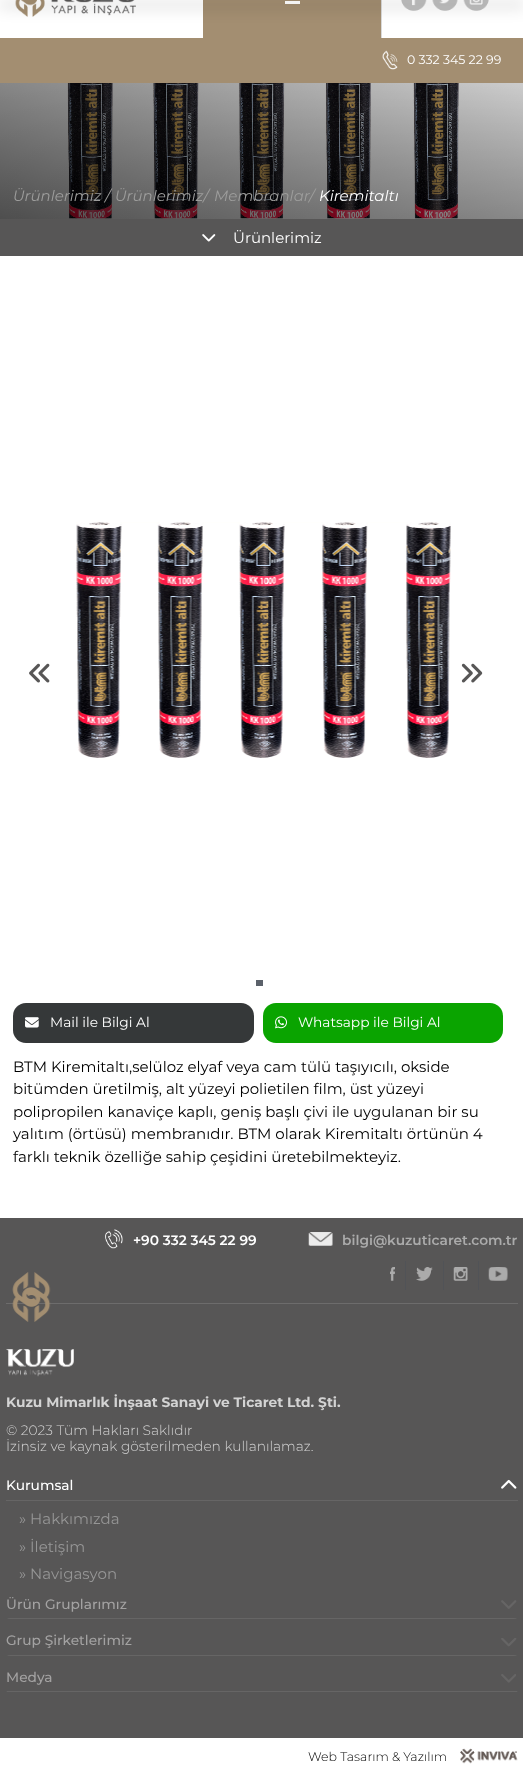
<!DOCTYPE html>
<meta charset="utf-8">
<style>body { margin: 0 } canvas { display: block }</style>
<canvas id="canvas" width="523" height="1775"></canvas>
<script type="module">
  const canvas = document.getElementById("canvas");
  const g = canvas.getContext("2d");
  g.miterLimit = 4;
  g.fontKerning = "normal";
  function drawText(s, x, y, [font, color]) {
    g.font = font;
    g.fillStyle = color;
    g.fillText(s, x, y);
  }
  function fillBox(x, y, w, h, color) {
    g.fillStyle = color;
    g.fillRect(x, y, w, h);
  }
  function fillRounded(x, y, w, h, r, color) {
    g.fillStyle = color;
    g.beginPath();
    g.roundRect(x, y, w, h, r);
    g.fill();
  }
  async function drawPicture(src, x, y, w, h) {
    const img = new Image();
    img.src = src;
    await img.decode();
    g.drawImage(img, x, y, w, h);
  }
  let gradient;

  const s1 = ["12.5px Montserrat", "#FFFFFF"];
  const s2 = ["italic 15px Montserrat", "#9D9D9C"];
  const s3 = ["italic 15px Montserrat", "#FFFFFF"];
  const s4 = ["15px Montserrat", "#FFFFFF"];
  const s5 = ["13.75px Montserrat", "#FFFFFF"];
  const s6 = ["15px Montserrat", "#000000"];
  const s7 = ["600 13.75px Montserrat", "#FFFFFF"];
  const s8 = ["600 13.75px Montserrat", "#ABABAB"];
  const s9 = ["bold 13.75px Montserrat", "#D3D3D3"];
  const s10 = ["300 13.75px Montserrat", "#D3D3D3"];
  const s11 = ["500 13.75px Montserrat", "#FFFFFF"];
  const s12 = ["15px Montserrat", "#969696"];
  const s13 = ["500 13.75px Montserrat", "#A3A2A2"];
  const s14 = ["300 12.5px Montserrat", "#000000"];

  fillBox(0, 0, 523, 1775, "#FFFFFF");
  await drawPicture("pic1.png", 15, 0, 121, 17);
  fillBox(203, 0, 178, 38, "#A38E71");
  fillBox(285, 1, 15, 3, "#FFFFFF");
  fillBox(381, 0, 1, 39, "#D9D9D9");
  await drawPicture("pic2.png", 401, 0, 26, 11);
  await drawPicture("pic3.png", 432, 0, 26, 11);
  await drawPicture("pic4.png", 463, 0, 26, 11);
  g.fillStyle = "rgba(0, 0, 0, 0.32)";
  g.filter = "blur(7.5px)";
  g.beginPath();
  g.rect(-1, 3, 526, 3);
  g.fill();
  g.filter = "none";
  fillBox(0, 38, 523, 45, "#A38E71");
  await drawPicture("pic5.png", 382, 50, 16, 20);
  drawText("0 332 345 22 99", 407, 64, s1);
  await drawPicture("pic6.png", 67, 83, 393, 136);
  gradient = g.createLinearGradient(206, 290, 317, -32);
  gradient.addColorStop(0, "rgba(0, 0, 0, 0.55)");
  gradient.addColorStop(1, "rgba(0, 0, 0, 0)");
  g.fillStyle = gradient;
  g.fillRect(0, 83, 523, 136);
  gradient = g.createLinearGradient(277, 8, 247, 249);
  gradient.addColorStop(0, "rgba(0, 0, 0, 0.1)");
  gradient.addColorStop(1, "rgba(0, 0, 0, 0.32)");
  g.fillStyle = gradient;
  g.fillRect(0, 83, 523, 136);
  drawText("Ürünlerimiz /", 13, 201, s2);
  drawText("Ürünlerimiz/", 115, 201, s2);
  drawText("Membranlar/", 214, 201, s2);
  drawText("Kiremitaltı", 319, 201, s3);
  fillBox(0, 219, 523, 37, "#575656");
  await drawPicture("pic7.png", 202, 234, 14, 8);
  drawText("Ürünlerimiz", 233, 243, s4);
  await drawPicture("pic8.png", 29, 663, 21, 20);
  await drawPicture("pic9.png", 76, 522, 375, 236);
  await drawPicture("pic10.png", 461, 663, 22, 20);
  fillBox(256, 980, 7, 6, "#5B616A");
  fillRounded(13, 1003, 241, 40, 13, "#353839");
  await drawPicture("pic11.png", 25, 1017, 14, 11);
  drawText("Mail ile Bilgi Al", 50, 1027, s5);
  fillRounded(263, 1003, 240, 40, 13, "#0AA400");
  await drawPicture("pic12.png", 275, 1016, 12, 13);
  drawText("Whatsapp ile Bilgi Al", 298, 1027, s5);
  drawText("BTM Kiremitaltı,selüloz elyaf veya cam tülü taşıyıcılı, okside", 13, 1072, s6);
  drawText("bitümden üretilmiş, alt yüzeyi polietilen film, üst yüzeyi", 13, 1094, s6);
  drawText("polipropilen kanaviçe kaplı, geniş başlı çivi ile uygulanan bir su", 13, 1117, s6);
  drawText("yalıtım (örtüsü) membranıdır. BTM olarak Kiremitaltı örtünün 4", 13, 1139, s6);
  drawText("farklı teknik özelliğe sahip çeşidini üretebilmekteyiz.", 13, 1162, s6);
  fillBox(0, 1218, 523, 520, "#575656");
  fillBox(6, 1303, 512, 1, "#6D6C6C");
  await drawPicture("pic13.png", 105, 1229, 18, 20);
  drawText("+90 332 345 22 99", 133, 1245, s7);
  await drawPicture("pic14.png", 308, 1232, 25, 14);
  drawText("bilgi@kuzuticaret.com.tr", 342, 1245, s8);
  await drawPicture("pic15.png", 390, 1267, 5, 14);
  fillBox(405, 1261, 1, 29, "#515357");
  await drawPicture("pic16.png", 416, 1267, 17, 14);
  fillBox(443, 1261, 1, 29, "#515357");
  await drawPicture("pic17.png", 453, 1267, 15, 14);
  fillBox(478, 1261, 1, 29, "#515357");
  await drawPicture("pic18.png", 488, 1267, 20, 14);
  await drawPicture("pic19.png", 12, 1272, 39, 50);
  await drawPicture("pic20.png", 6, 1349, 68, 28);
  drawText("Kuzu Mimarlık İnşaat Sanayi ve Ticaret Ltd. Şti.", 6, 1407, s9);
  drawText("© 2023 Tüm Hakları Saklıdır", 6, 1435, s10);
  drawText("İzinsiz ve kaynak gösterilmeden kullanılamaz.", 6, 1451, s10);
  fillBox(6, 1500, 512, 1, "#666565");
  drawText("Kurumsal", 6, 1490, s11);
  await drawPicture("pic21.png", 501, 1479, 16, 10);
  drawText("» Hakkımızda", 19, 1524, s12);
  drawText("» İletişim", 19, 1552, s12);
  drawText("» Navigasyon", 19, 1579, s12);
  g.save();
  g.beginPath();
  g.roundRect(6, 1590, 512, 29, 4);
  g.clip();
  fillBox(6, 1618, 512, 1, "#666565");
  g.restore();
  drawText("Ürün Gruplarımız", 6, 1609, s13);
  await drawPicture("pic22.png", 501, 1600, 16, 9);
  g.save();
  g.beginPath();
  g.roundRect(6, 1628, 512, 28, 4);
  g.clip();
  fillBox(6, 1655, 512, 1, "#666565");
  g.restore();
  drawText("Grup Şirketlerimiz", 6, 1645, s13);
  await drawPicture("pic23.png", 501, 1638, 16, 9);
  g.save();
  g.beginPath();
  g.roundRect(6, 1664, 512, 29, 4);
  g.clip();
  fillBox(6, 1691, 512, 1, "#666565");
  g.restore();
  drawText("Medya", 6, 1682, s13);
  await drawPicture("pic24.png", 501, 1674, 15, 9);
  drawText("Web Tasarım & Yazılım", 308, 1761, s14);
  await drawPicture("pic25.png", 460, 1748, 58, 16);
</script>
